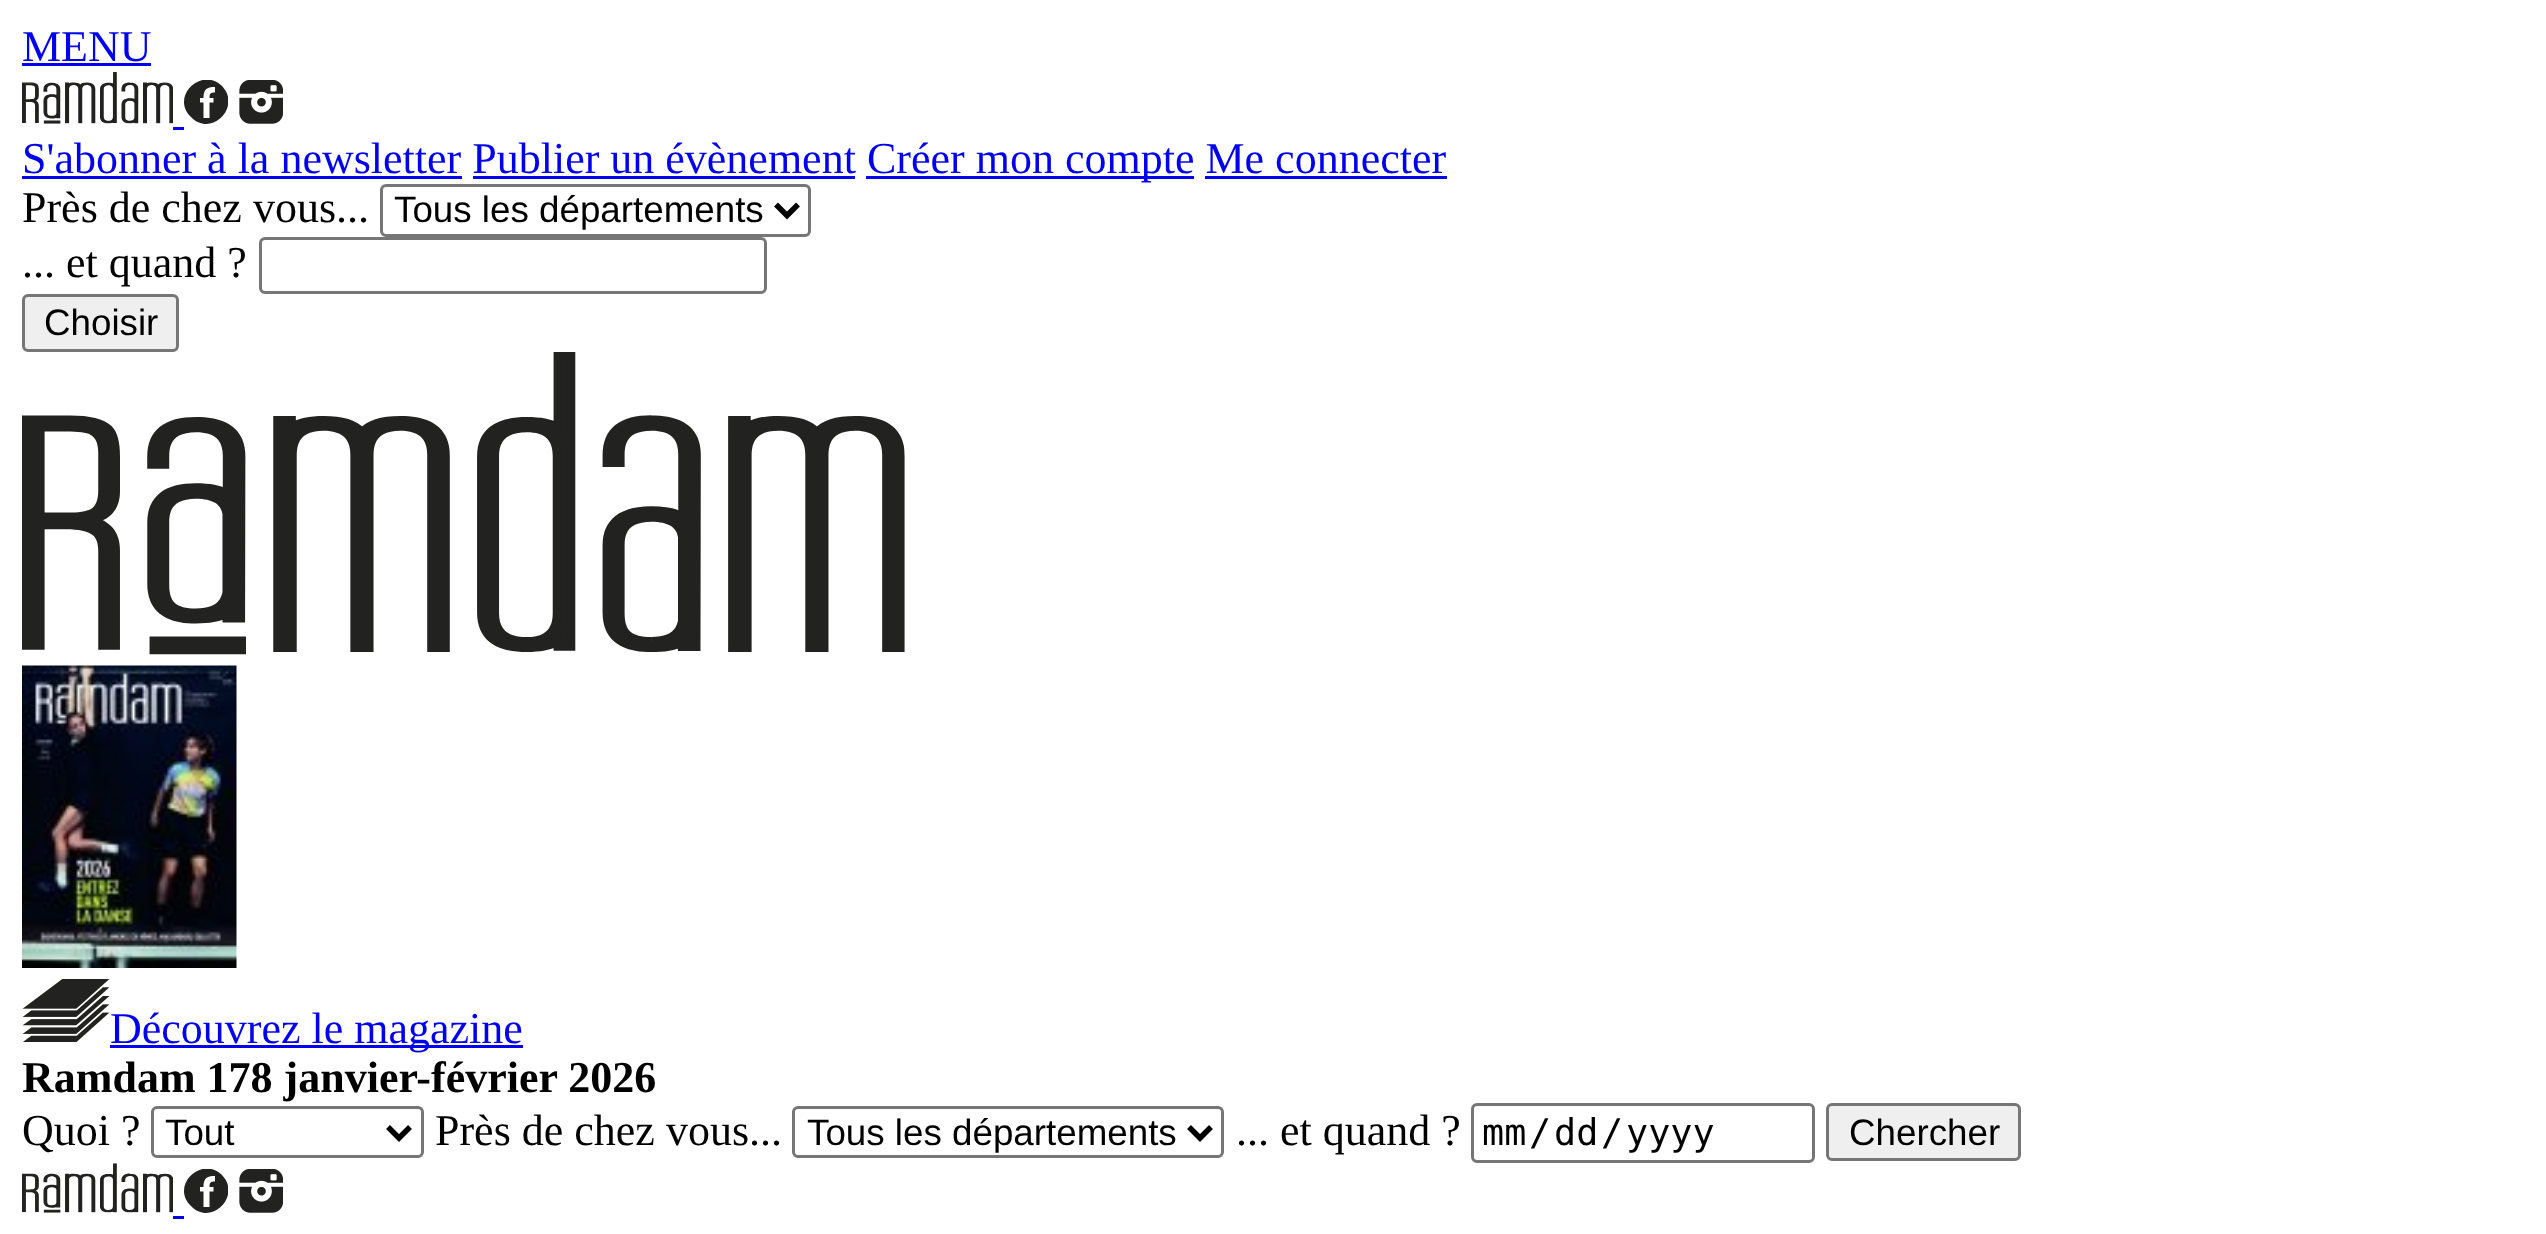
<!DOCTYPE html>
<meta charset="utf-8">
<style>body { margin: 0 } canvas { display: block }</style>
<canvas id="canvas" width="2546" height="1234"></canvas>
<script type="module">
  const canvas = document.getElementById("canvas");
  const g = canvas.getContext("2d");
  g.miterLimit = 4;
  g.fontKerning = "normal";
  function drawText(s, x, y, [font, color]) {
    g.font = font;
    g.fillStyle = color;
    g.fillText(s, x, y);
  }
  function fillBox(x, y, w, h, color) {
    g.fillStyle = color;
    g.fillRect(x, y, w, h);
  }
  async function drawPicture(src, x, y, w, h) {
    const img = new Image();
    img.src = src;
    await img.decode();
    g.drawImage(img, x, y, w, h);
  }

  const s1 = ["44px Liberation Serif", "#0000EE"];
  const s2 = ["44px Liberation Serif", "#000000"];
  const s3 = ["36.75px Liberation Sans", "#000000"];
  const s4 = ["bold 44px Liberation Serif", "#000000"];
  const s5 = ["36.75px DejaVu Sans Mono", "#000000"];

  fillBox(0, 0, 2546, 1234, "#FFFFFF");
  drawText("MENU", 22, 61, s1);
  fillBox(22, 63, 129, 3, "#0000EE");
  await drawPicture("pic1.png", 22, 72, 151, 52);
  g.save();
  g.beginPath();
  g.rect(184, 80, 44, 44);
  g.clip();
  g.fillStyle = "#222221";
  g.beginPath();
  g.moveTo(222, 86);
  g.bezierCurveTo(201, 66, 170, 97, 191, 117);
  g.bezierCurveTo(211, 138, 242, 107, 222, 86);
  g.closePath();
  g.fill();
  g.restore();
  await drawPicture("pic2.png", 239, 80, 44, 44);
  g.fillStyle = "#FFFFFF";
  g.beginPath();
  g.moveTo(215, 92.5);
  g.bezierCurveTo(210.5, 92.5, 209.5, 93.5, 209.5, 98);
  g.lineTo(213.5, 98);
  g.lineTo(213.5, 102.5);
  g.lineTo(209.5, 102.5);
  g.lineTo(209.5, 118);
  g.lineTo(203.5, 118);
  g.lineTo(203.5, 102.5);
  g.lineTo(200, 102.5);
  g.lineTo(200, 98);
  g.lineTo(203.5, 98);
  g.bezierCurveTo(203.5, 89.5, 206.5, 87, 215, 87);
  g.closePath();
  g.fill();
  fillBox(173, 127, 11, 3, "#0000EE");
  drawText("S'abonner à la newsletter Publier un évènement", 22, 173, s1);
  fillBox(22, 176, 440, 3, "#0000EE");
  fillBox(866, 176, 328, 3, "#0000EE");
  drawText("Créer mon compte Me connecter", 867, 173, s1);
  fillBox(473, 176, 382, 3, "#0000EE");
  fillBox(1205, 176, 242, 3, "#0000EE");
  drawText("Près de chez vous...", 22, 222, s2);
  g.beginPath();
  g.roundRect(381.5, 185.5, 428, 50, 4.5);
  g.strokeStyle = "#767676";
  g.lineWidth = 3;
  g.stroke();
  g.beginPath();
  g.moveTo(776, 204.5);
  g.lineTo(787, 215.5);
  g.lineTo(798, 204.5);
  g.strokeStyle = "#000000";
  g.lineWidth = 5.5;
  g.stroke();
  drawText("Tous les départements", 394, 222, s3);
  drawText("... et quand ?", 22, 277, s2);
  g.beginPath();
  g.roundRect(260.5, 238.5, 505, 54, 4.5);
  g.strokeStyle = "#767676";
  g.lineWidth = 3;
  g.stroke();
  g.fillStyle = "#EFEFEF";
  g.beginPath();
  g.roundRect(23.5, 295.5, 154, 55, 4.5);
  g.fill();
  g.stroke();
  drawText("Choisir", 44, 335, s3);
  await drawPicture("pic3.png", 22, 352, 883, 303);
  await drawPicture("pic4.png", 22, 665, 215, 303);
  await drawPicture("pic5.png", 22, 979, 88, 63);
  fillBox(110, 1045, 413, 3, "#0000EE");
  drawText("Découvrez le magazine", 110, 1043, s1);
  drawText("Ramdam 178 janvier-février 2026", 22, 1092, s4);
  drawText("Quoi ?", 22, 1145, s2);
  g.beginPath();
  g.roundRect(152.5, 1107.5, 270, 49, 4.5);
  g.stroke();
  g.beginPath();
  g.moveTo(388, 1127);
  g.lineTo(399, 1138);
  g.lineTo(410, 1127);
  g.strokeStyle = "#000000";
  g.lineWidth = 5.5;
  g.stroke();
  drawText("Tout", 165, 1145, s3);
  drawText("Près de chez vous...", 435, 1145, s2);
  g.beginPath();
  g.roundRect(793.5, 1107.5, 429, 49, 4.5);
  g.strokeStyle = "#767676";
  g.lineWidth = 3;
  g.stroke();
  g.beginPath();
  g.moveTo(1189, 1127);
  g.lineTo(1200, 1138);
  g.lineTo(1211, 1127);
  g.strokeStyle = "#000000";
  g.lineWidth = 5.5;
  g.stroke();
  drawText("Tous les départements", 807, 1145, s3);
  drawText("... et quand ?", 1236, 1145, s2);
  g.beginPath();
  g.roundRect(1472.5, 1104.5, 341, 57, 4.5);
  g.strokeStyle = "#767676";
  g.lineWidth = 3;
  g.stroke();
  drawText("mm", 1482, 1145, s5);
  drawText("/", 1529, 1145, s5);
  drawText("dd", 1554, 1145, s5);
  drawText("/", 1601, 1145, s5);
  drawText("yyyy", 1626, 1145, s5);
  g.fillStyle = "#EFEFEF";
  g.beginPath();
  g.roundRect(1827.5, 1104.5, 192, 55, 4.5);
  g.fill();
  g.stroke();
  drawText("Chercher", 1849, 1145, s3);
  await drawPicture("pic6.png", 22, 1163, 151, 50);
  g.save();
  g.beginPath();
  g.rect(184, 1169, 44, 44);
  g.clip();
  g.fillStyle = "#222221";
  g.beginPath();
  g.moveTo(222, 1175);
  g.bezierCurveTo(201, 1155, 170, 1186, 191, 1206);
  g.bezierCurveTo(211, 1227, 242, 1196, 222, 1175);
  g.closePath();
  g.fill();
  g.restore();
  await drawPicture("pic2.png", 239, 1169, 44, 44);
  g.fillStyle = "#FFFFFF";
  g.beginPath();
  g.moveTo(215, 1181.5);
  g.bezierCurveTo(210.5, 1181.5, 209.5, 1182.5, 209.5, 1187);
  g.lineTo(213.5, 1187);
  g.lineTo(213.5, 1191.5);
  g.lineTo(209.5, 1191.5);
  g.lineTo(209.5, 1207);
  g.lineTo(203.5, 1207);
  g.lineTo(203.5, 1191.5);
  g.lineTo(200, 1191.5);
  g.lineTo(200, 1187);
  g.lineTo(203.5, 1187);
  g.bezierCurveTo(203.5, 1178.5, 206.5, 1176, 215, 1176);
  g.closePath();
  g.fill();
  fillBox(173, 1216, 11, 3, "#0000EE");
</script>
